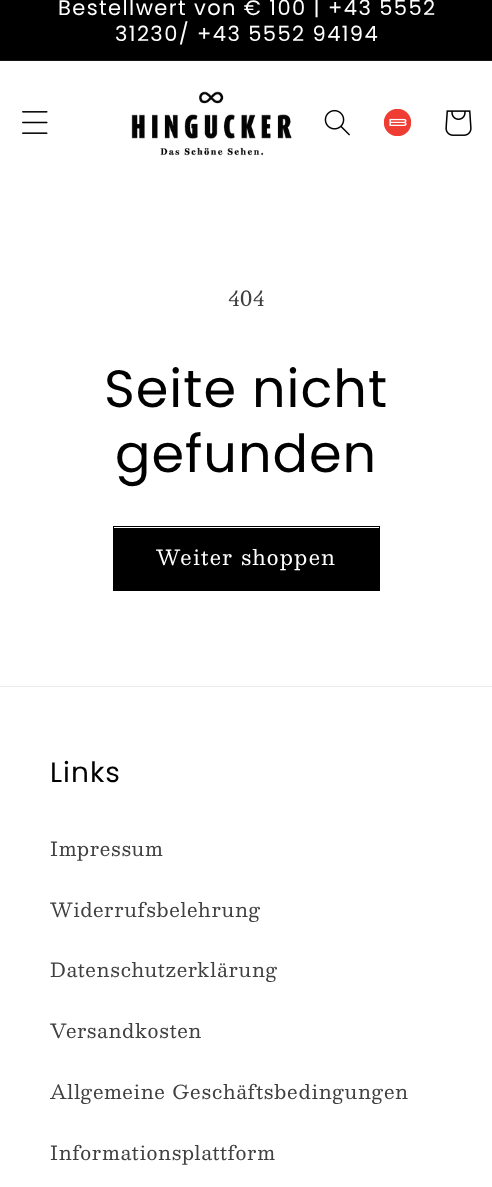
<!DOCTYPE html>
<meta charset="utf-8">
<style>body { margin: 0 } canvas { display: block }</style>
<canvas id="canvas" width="492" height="1187"></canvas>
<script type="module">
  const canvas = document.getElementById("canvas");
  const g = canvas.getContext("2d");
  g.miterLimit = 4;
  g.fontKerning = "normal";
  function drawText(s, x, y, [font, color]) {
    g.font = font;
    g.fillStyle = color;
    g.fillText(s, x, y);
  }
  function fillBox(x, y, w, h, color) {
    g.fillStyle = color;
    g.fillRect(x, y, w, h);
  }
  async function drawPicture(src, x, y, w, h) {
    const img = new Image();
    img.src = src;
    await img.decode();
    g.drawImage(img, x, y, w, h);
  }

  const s1 = ["21px Poppins", "#FFFFFF"];
  const s2 = ["20.6px Besley", "#404040"];
  const s3 = ["52.5px Poppins", "#000000"];
  const s4 = ["20.6px Besley", "#FFFFFF"];
  const s5 = ["28px Poppins", "#000000"];
  const s6 = ["19.25px Besley", "#404040"];

  fillBox(0, 0, 492, 1187, "#FFFFFF");
  fillBox(0, 0, 492, 60, "#000000");
  fillBox(0, 60, 492, 1, "#141414");
  g.letterSpacing = "1.4px";
  drawText("Bestellwert von € 100 | +43 5552", 58, 15, s1);
  drawText("31230/ +43 5552 94194", 115, 41, s1);
  await drawPicture("pic1.png", 22, 111, 26, 23);
  await drawPicture("pic2.png", 131, 91, 161, 65);
  await drawPicture("pic3.png", 324, 109, 26, 27);
  await drawPicture("pic4.png", 384, 109, 27, 27);
  await drawPicture("pic5.png", 445, 110, 27, 26);
  g.letterSpacing = "0.8px";
  drawText("404", 228, 306, s2);
  g.letterSpacing = "1px";
  drawText("Seite nicht", 104, 407, s3);
  drawText("gefunden", 115, 472, s3);
  g.strokeStyle = "#000000";
  g.strokeRect(113.5, 526.5, 266, 64);
  fillBox(114, 528, 265, 62, "#000000");
  g.letterSpacing = "1.4px";
  drawText("Weiter shoppen", 156, 565, s4);
  fillBox(0, 686, 492, 1, "#EBEBEB");
  g.letterSpacing = "1px";
  drawText("Links", 50, 782, s5);
  g.letterSpacing = "0.8px";
  drawText("Impressum", 50, 856, s6);
  drawText("Widerrufsbelehrung", 50, 917, s6);
  drawText("Datenschutzerklärung", 50, 977, s6);
  drawText("Versandkosten", 50, 1038, s6);
  drawText("Allgemeine Geschäftsbedingungen", 50, 1099, s6);
  drawText("Informationsplattform", 50, 1160, s6);
</script>
